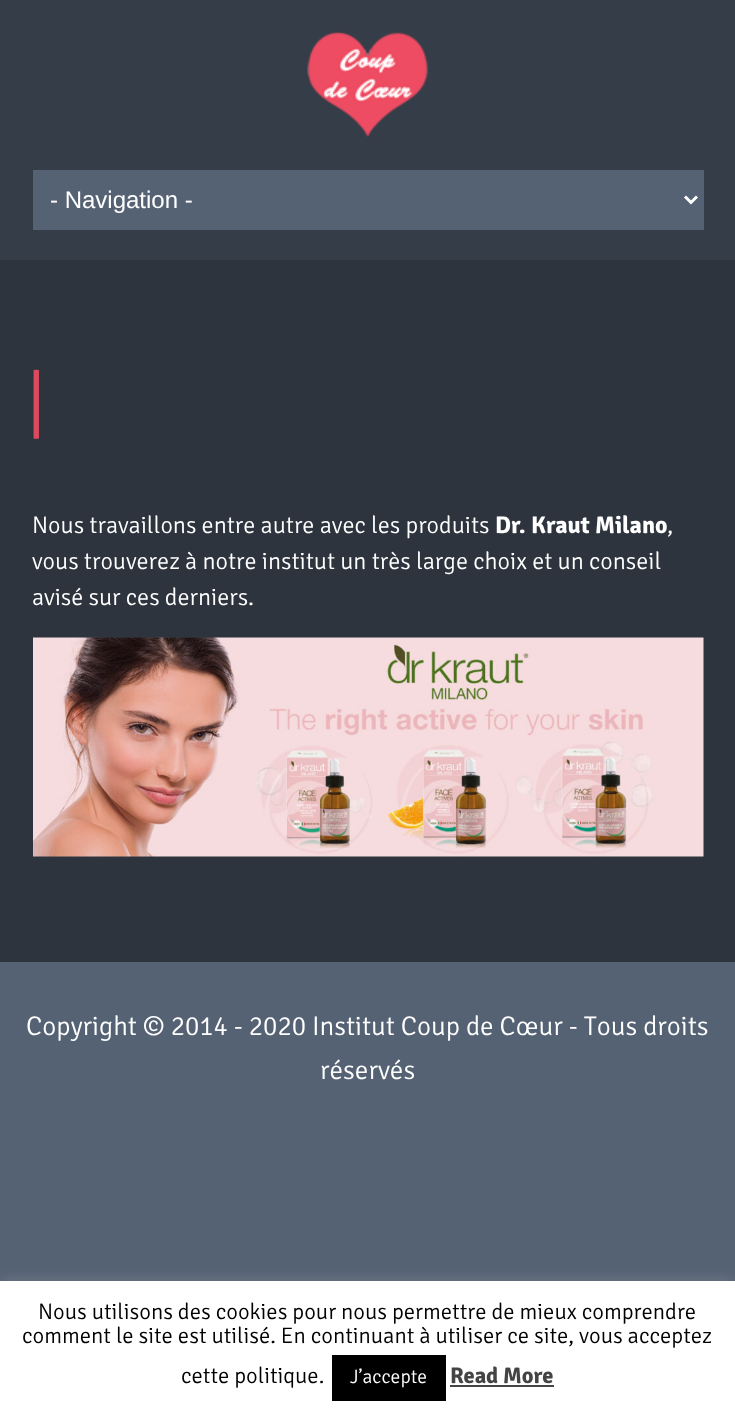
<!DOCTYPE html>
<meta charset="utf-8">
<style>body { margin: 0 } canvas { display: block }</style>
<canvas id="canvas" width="735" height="1418"></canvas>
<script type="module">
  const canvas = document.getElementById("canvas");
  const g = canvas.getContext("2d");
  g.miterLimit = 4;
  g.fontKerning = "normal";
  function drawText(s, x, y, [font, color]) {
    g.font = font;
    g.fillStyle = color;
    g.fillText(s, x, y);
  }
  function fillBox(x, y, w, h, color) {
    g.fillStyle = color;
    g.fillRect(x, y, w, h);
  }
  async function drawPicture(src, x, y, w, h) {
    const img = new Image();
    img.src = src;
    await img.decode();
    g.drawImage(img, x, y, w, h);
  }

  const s1 = ["24px Liberation Sans", "#FFFFFF"];
  const s2 = ["300 75px Signika", "#DB4A5E"];
  const s3 = ["300 24px Signika", "#FFFFFF"];
  const s4 = ["bold 24px Signika", "#FFFFFF"];
  const s5 = ["300 27px Signika", "#FFFFFF"];
  const s6 = ["300 22.5px Signika", "#000000"];
  const s7 = ["300 19.5px Signika", "#FFFFFF"];
  const s8 = ["bold 22.5px Signika", "#444444"];

  fillBox(0, 0, 735, 1418, "#556274");
  fillBox(0, 0, 735, 260, "#353D49");
  await drawPicture("pic1.png", 307, 31, 121, 106);
  fillBox(33, 170, 671, 60, "#556274");
  g.beginPath();
  g.moveTo(685, 196.5);
  g.lineTo(691, 202.5);
  g.lineTo(697, 196.5);
  g.strokeStyle = "#FFFFFF";
  g.lineWidth = 3;
  g.stroke();
  drawText("- Navigation -", 50, 208, s1);
  fillBox(0, 260, 735, 702, "#2D343E");
  drawText("|", 27, 428, s2);
  drawText("Nous travaillons entre autre avec les produits", 32, 533, s3);
  drawText("Dr. Kraut Milano", 495, 533, s4);
  drawText(",", 667, 533, s3);
  drawText("vous trouverez à notre institut un très large choix et un conseil", 32, 569, s3);
  drawText("avisé sur ces derniers.", 32, 605, s3);
  await drawPicture("pic2.png", 33, 637, 671, 220);
  drawText("Copyright © 2014 - 2020 Institut Coup de Cœur - Tous droits", 26, 1035, s5);
  drawText("réservés", 320, 1079, s5);
  g.fillStyle = "rgba(172, 171, 171, 0.3)";
  g.filter = "blur(7.5px)";
  g.beginPath();
  g.rect(0, 1280, 735, 138);
  g.fill();
  g.filter = "none";
  fillBox(0, 1281, 735, 137, "#FFFFFF");
  drawText("Nous utilisons des cookies pour nous permettre de mieux comprendre", 38, 1319, s6);
  drawText("comment le site est utilisé. En continuant à utiliser ce site, vous acceptez", 22, 1343, s6);
  drawText("cette politique.", 181, 1383, s6);
  fillBox(332, 1355, 114, 46, "#000000");
  drawText("J’accepte", 350, 1383, s7);
  drawText("Read More", 450, 1383, s8);
  fillBox(450, 1385, 104, 2, "#444444");
</script>
